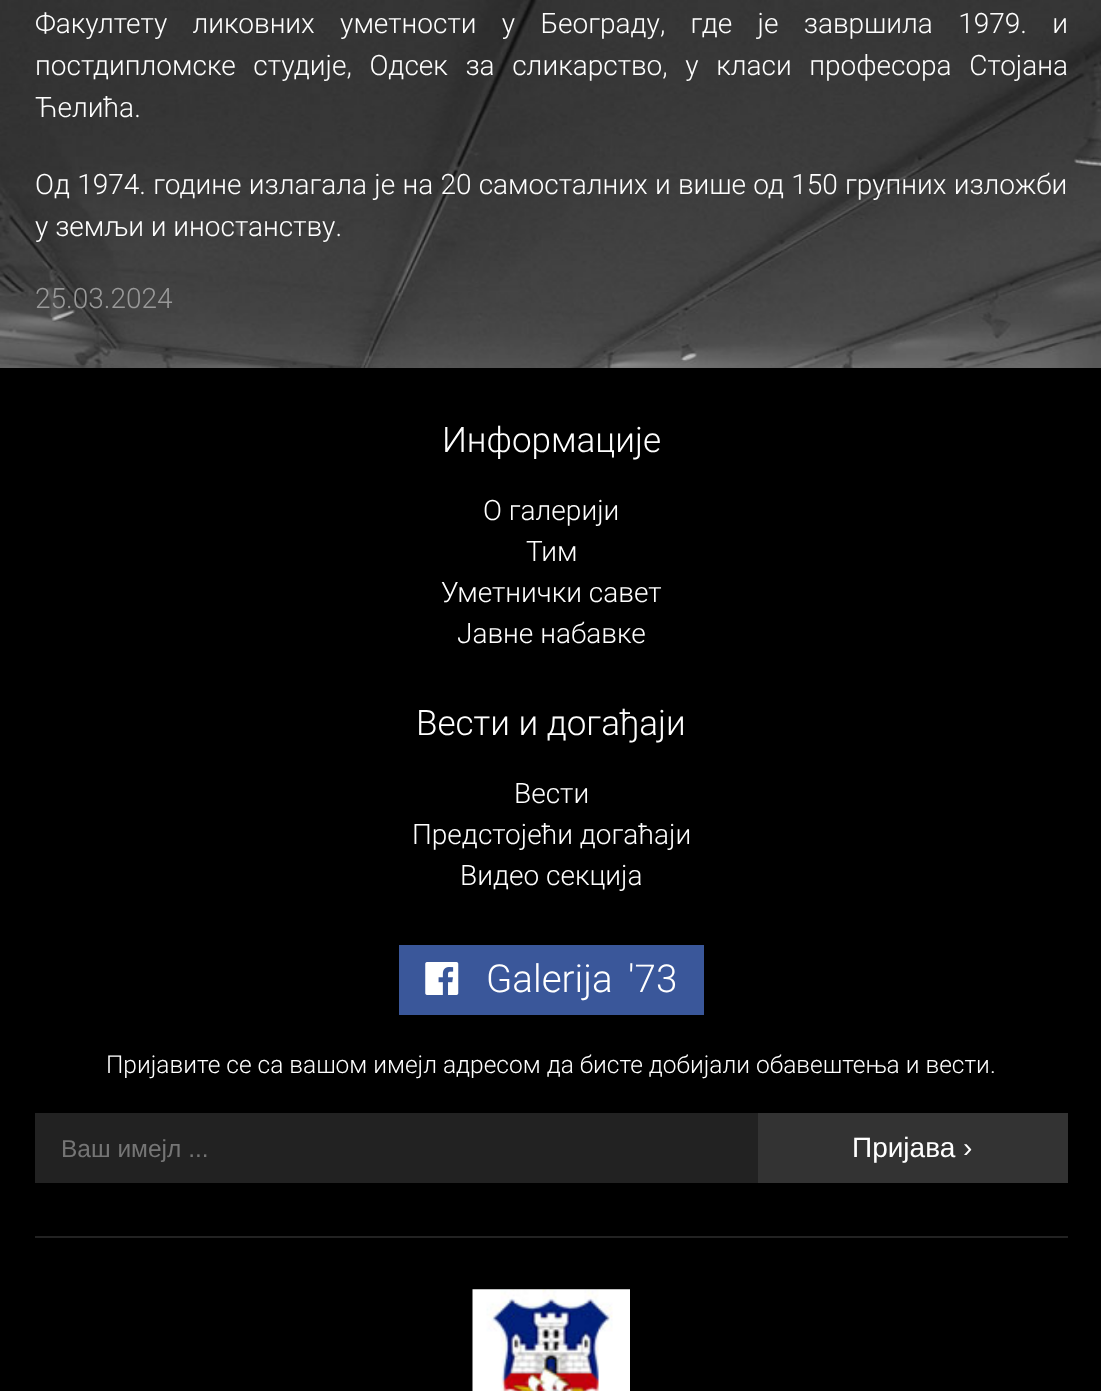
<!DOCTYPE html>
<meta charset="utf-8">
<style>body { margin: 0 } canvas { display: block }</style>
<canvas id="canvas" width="1101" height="1391"></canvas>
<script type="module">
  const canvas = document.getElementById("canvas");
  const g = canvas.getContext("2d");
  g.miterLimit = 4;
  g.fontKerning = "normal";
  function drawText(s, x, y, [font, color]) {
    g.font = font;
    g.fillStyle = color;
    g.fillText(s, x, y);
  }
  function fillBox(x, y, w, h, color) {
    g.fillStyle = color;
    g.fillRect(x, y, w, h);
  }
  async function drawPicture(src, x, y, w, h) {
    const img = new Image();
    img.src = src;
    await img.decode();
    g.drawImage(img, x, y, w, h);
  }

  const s1 = ["300 28px Roboto", "#FFFFFF"];
  const s2 = ["300 28px Roboto", "#999999"];
  const s3 = ["300 35px Roboto", "#FFFFFF"];
  const s4 = ["300 38.5px Roboto", "#FFFFFF"];
  const s5 = ["300 24.5px Roboto", "#FFFFFF"];
  const s6 = ["24.5px Liberation Sans", "#757575"];
  const s7 = ["28px Liberation Sans", "#FFFFFF"];

  fillBox(0, 0, 1101, 1391, "#FFFFFF");
  await drawPicture("pic1.png", 0, 0, 1101, 368);
  g.wordSpacing = "18.5px";
  drawText("Факултету ликовних уметности у Београду, где је завршила 1979. и", 35, 33, s1);
  g.wordSpacing = "10.75px";
  drawText("постдипломске студије, Одсек за сликарство, у класи професора Стојана", 35, 75, s1);
  g.wordSpacing = "0px";
  drawText("Ћелића.", 35, 117, s1);
  g.wordSpacing = "0.4px";
  drawText("Од 1974. године излагала је на 20 самосталних и више од 150 групних изложби", 35, 194, s1);
  g.wordSpacing = "0px";
  drawText("у земљи и иностанству.", 35, 236, s1);
  drawText("25.03.2024", 35, 308, s2);
  fillBox(0, 368, 1101, 1023, "#000000");
  drawText("Информације", 442, 452, s3);
  drawText("О галерији", 483, 520, s1);
  drawText("Тим", 526, 561, s1);
  drawText("Уметнички савет", 441, 602, s1);
  drawText("Јавне набавке", 457, 643, s1);
  drawText("Вести и догађаји", 416, 735, s3);
  drawText("Вести", 514, 803, s1);
  drawText("Предстојећи догаћаји", 412, 844, s1);
  drawText("Видео секција", 460, 885, s1);
  fillBox(399, 945, 305, 70, "#3A579A");
  await drawPicture("pic2.png", 425, 962, 34, 33);
  g.wordSpacing = "6px";
  drawText("Galerija '73", 486, 992, s4);
  g.wordSpacing = "0px";
  drawText("Пријавите се са вашом имејл адресом да бисте добијали обавештења и вести.", 106, 1073, s5);
  fillBox(35, 1113, 723, 70, "#222222");
  drawText("Ваш имејл ...", 61, 1157, s6);
  fillBox(758, 1113, 310, 70, "#333333");
  drawText("Пријава ›", 852, 1157, s7);
  fillBox(35, 1236, 1033, 2, "#222222");
  await drawPicture("pic3.png", 472, 1289, 158, 102);
</script>
